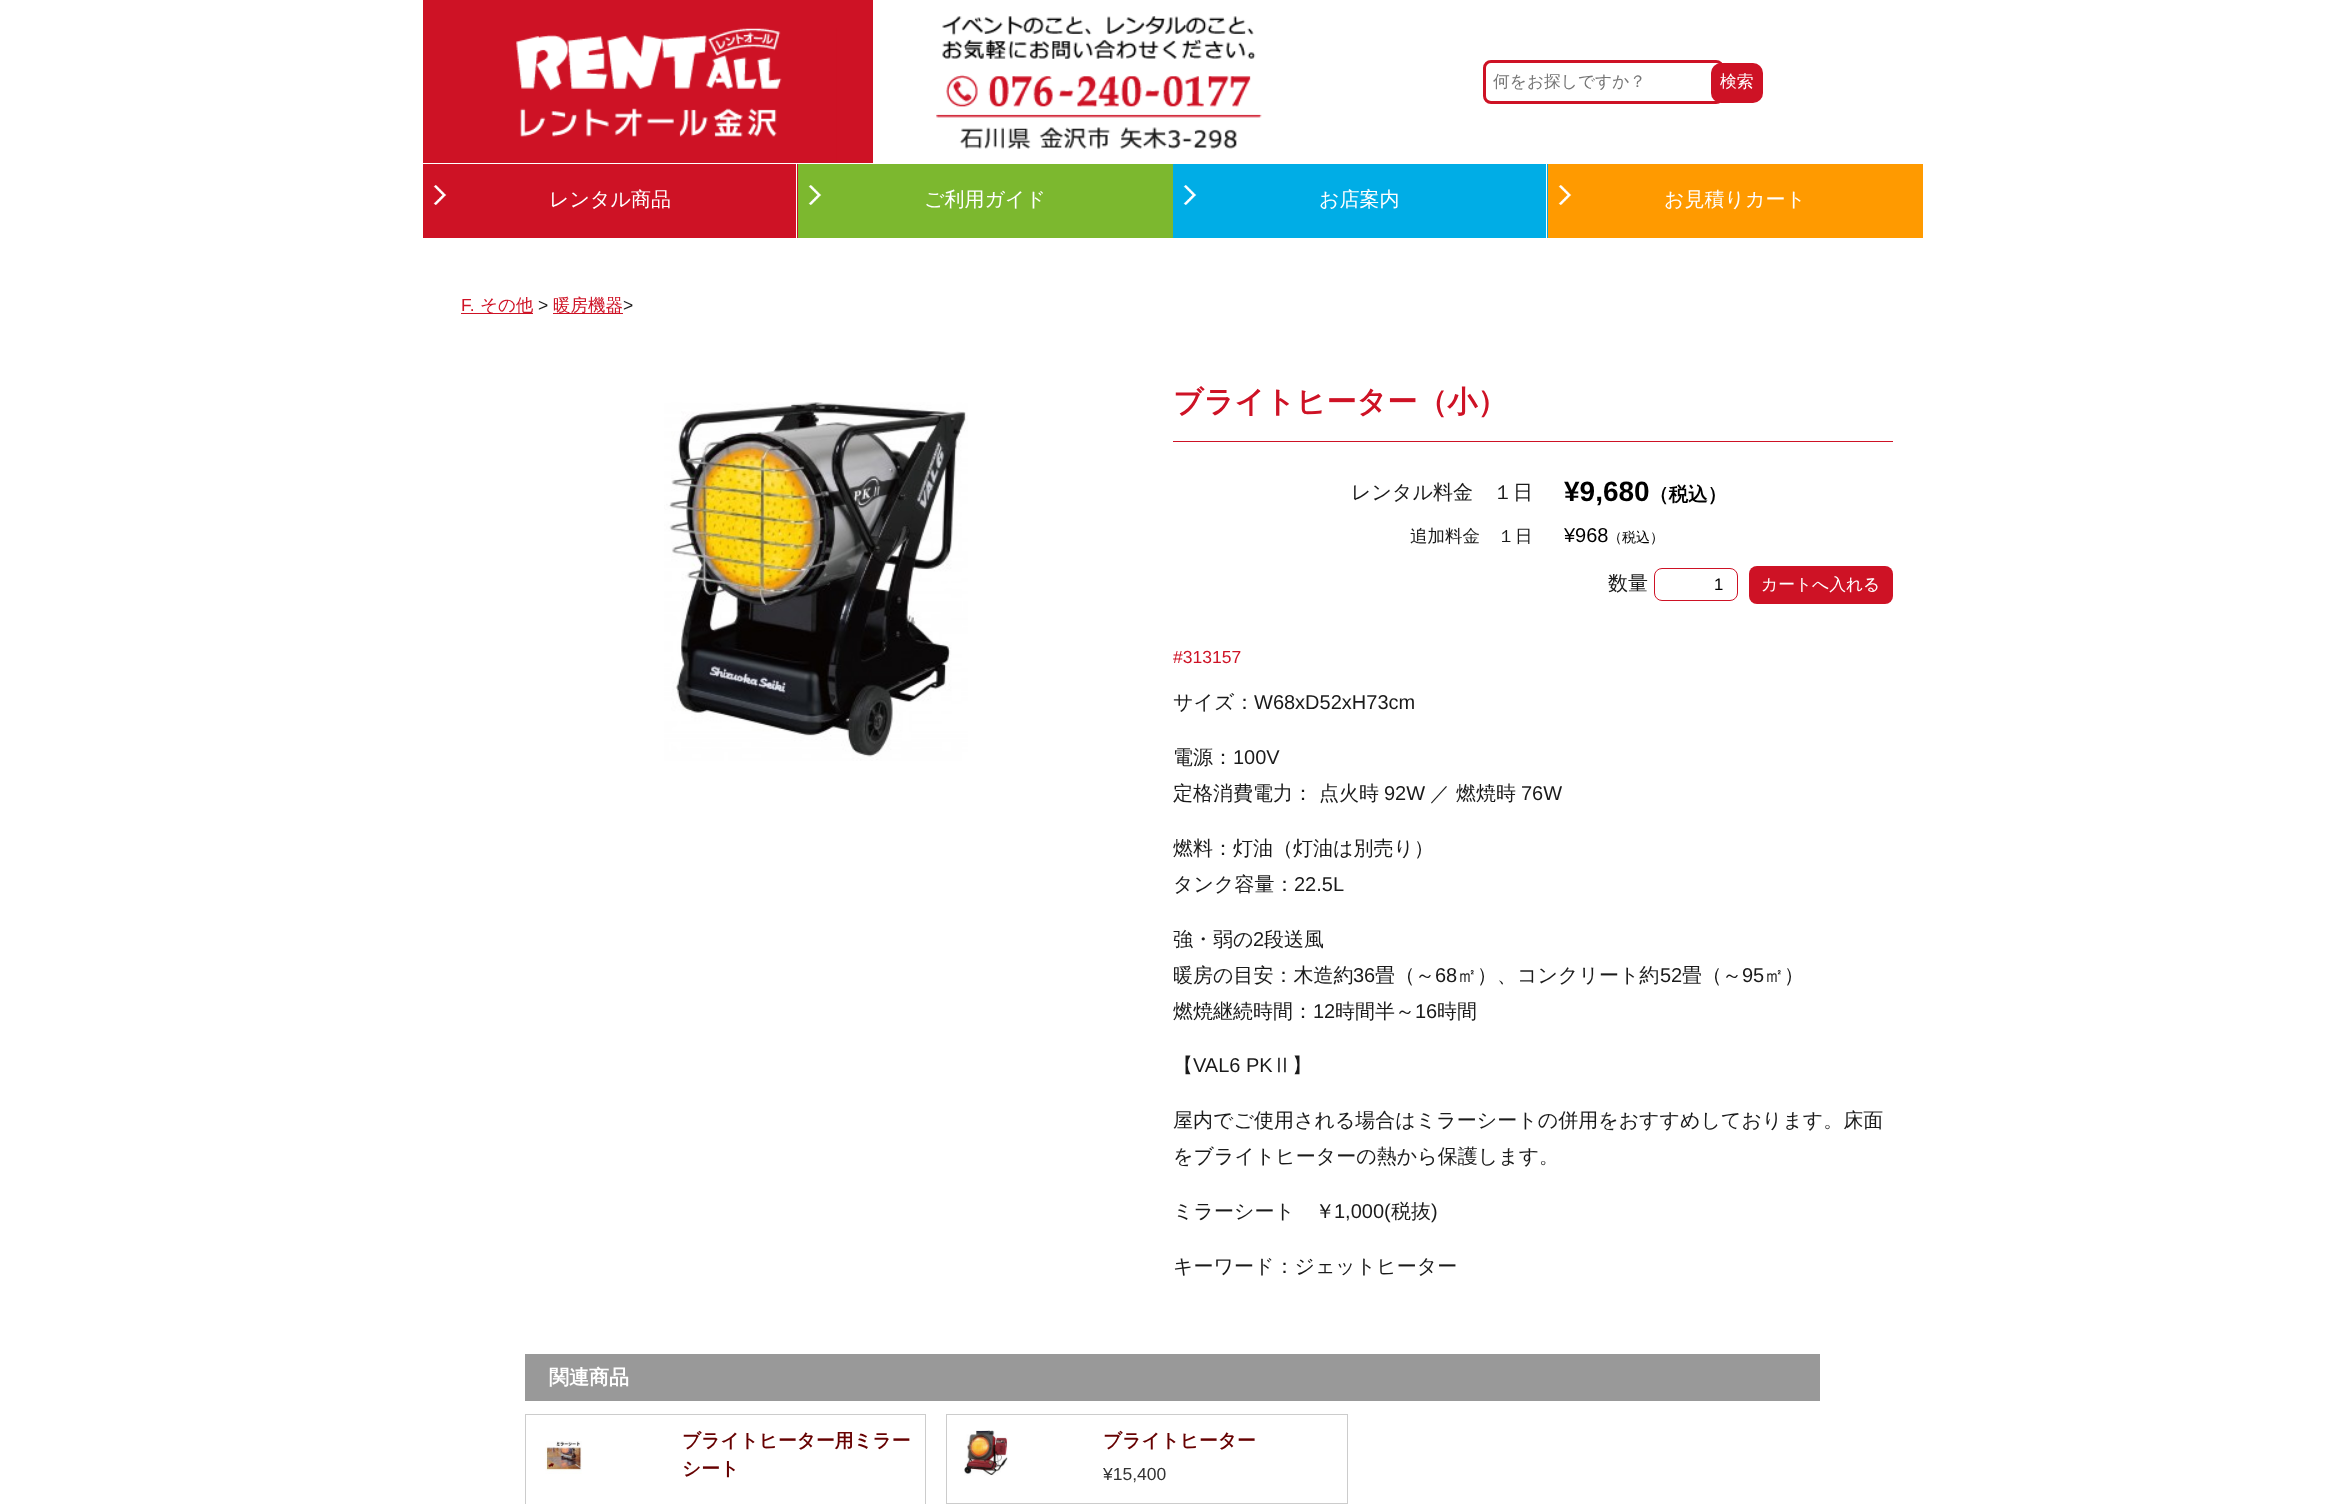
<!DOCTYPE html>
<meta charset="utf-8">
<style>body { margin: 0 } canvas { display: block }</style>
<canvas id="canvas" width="2344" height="1504"></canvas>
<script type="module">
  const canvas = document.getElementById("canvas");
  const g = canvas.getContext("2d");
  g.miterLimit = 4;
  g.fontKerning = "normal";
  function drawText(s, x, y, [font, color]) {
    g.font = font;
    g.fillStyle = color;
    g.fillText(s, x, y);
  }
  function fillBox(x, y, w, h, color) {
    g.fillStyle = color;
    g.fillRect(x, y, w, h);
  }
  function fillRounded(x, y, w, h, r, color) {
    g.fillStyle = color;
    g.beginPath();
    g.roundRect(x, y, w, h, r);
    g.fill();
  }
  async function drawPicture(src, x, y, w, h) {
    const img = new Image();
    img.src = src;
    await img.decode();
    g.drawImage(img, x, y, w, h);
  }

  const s1 = ["500 16.75px WenQuanYi Zen Hei", "#757575"];
  const s2 = ["500 16.75px WenQuanYi Zen Hei", "#FFFFFF"];
  const s3 = ["500 20px WenQuanYi Zen Hei", "#FFFFFF"];
  const s4 = ["17.5px Liberation Sans", "#CE1225"];
  const s5 = ["500 17.5px WenQuanYi Zen Hei", "#CE1225"];
  const s6 = ["17.5px Liberation Sans", "#1A1A1A"];
  const s7 = ["bold 30px WenQuanYi Zen Hei", "#CE1225"];
  const s8 = ["500 20px WenQuanYi Zen Hei", "#1A1A1A"];
  const s9 = ["bold 28px Liberation Sans", "#000000"];
  const s10 = ["bold 19.5px WenQuanYi Zen Hei", "#000000"];
  const s11 = ["500 17.5px WenQuanYi Zen Hei", "#1A1A1A"];
  const s12 = ["20px Liberation Sans", "#000000"];
  const s13 = ["500 14px WenQuanYi Zen Hei", "#000000"];
  const s14 = ["16.75px Liberation Sans", "#000000"];
  const s15 = ["20px Liberation Sans", "#1A1A1A"];
  const s16 = ["bold 20px WenQuanYi Zen Hei", "#FFFFFF"];
  const s17 = ["bold 18.75px WenQuanYi Zen Hei", "#660000"];
  const s18 = ["17.5px Liberation Sans", "#333333"];

  fillBox(0, 0, 2344, 1504, "#FFFFFF");
  fillBox(423, 0, 450, 163, "#CE1225");
  await drawPicture("pic1.png", 460, 28, 377, 135);
  await drawPicture("pic2.png", 936, 16, 326, 133);
  g.beginPath();
  g.roundRect(1484.5, 61.5, 238, 41, 6.5);
  g.strokeStyle = "#CE1225";
  g.lineWidth = 3;
  g.stroke();
  drawText("何をお探しですか？", 1493, 87, s1);
  fillRounded(1711, 63, 52, 40, 10, "#CE1225");
  drawText("検索", 1720, 87, s2);
  fillBox(423, 164, 375, 74, "#CE1225");
  fillBox(796, 163, 1, 75, "#FFFFFF");
  await drawPicture("pic3.png", 433, 185, 14, 20);
  drawText("レンタル商品", 549, 206, s3);
  fillBox(798, 164, 375, 74, "#7CB82F");
  await drawPicture("pic4.png", 808, 185, 14, 20);
  drawText("ご利用ガイド", 924, 206, s3);
  fillBox(1173, 164, 375, 74, "#00ADE6");
  fillBox(1546, 163, 1, 75, "#FFFFFF");
  await drawPicture("pic5.png", 1183, 185, 14, 20);
  drawText("お店案内", 1319, 206, s3);
  fillBox(1548, 164, 375, 74, "#FF9A00");
  await drawPicture("pic6.png", 1558, 185, 14, 20);
  drawText("お見積りカート", 1664, 206, s3);
  drawText("F.", 461, 311, s4);
  fillBox(461, 313, 72, 1, "#CE1225");
  drawText("その他", 480, 311, s5);
  drawText(">", 538, 311, s6);
  fillBox(553, 313, 70, 1, "#CE1225");
  drawText("暖房機器", 553, 311, s5);
  drawText(">", 623, 311, s6);
  await drawPicture("pic7.png", 664, 402, 304, 359);
  fillBox(1173, 441, 720, 1, "#CE1225");
  drawText("ブライトヒーター（小）", 1173, 412, s7);
  drawText("レンタル料金　１日", 1351, 499, s8);
  drawText("¥9,680", 1564, 501, s9);
  drawText("（税込）", 1649, 501, s10);
  drawText("追加料金　１日", 1410, 542, s11);
  drawText("¥968", 1564, 542, s12);
  drawText("（税込）", 1608, 542, s13);
  drawText("数量", 1608, 590, s8);
  g.beginPath();
  g.roundRect(1654.5, 568.5, 83, 32, 7.5);
  g.lineWidth = 1;
  g.stroke();
  drawText("1", 1714, 590, s14);
  fillRounded(1749, 566, 144, 38, 8, "#CE1225");
  drawText("カートへ入れる", 1761, 590, s2);
  drawText("#313157", 1173, 663, s4);
  drawText("サイズ：", 1173, 709, s8);
  drawText("W68xD52xH73cm", 1254, 709, s15);
  drawText("電源：", 1173, 764, s8);
  drawText("100V", 1233, 764, s15);
  drawText("定格消費電力： 点火時", 1173, 800, s8);
  drawText("92W", 1384, 800, s15);
  drawText("／ 燃焼時", 1430, 800, s8);
  drawText("76W", 1521, 800, s15);
  drawText("燃料：灯油（灯油は別売り）", 1173, 855, s8);
  drawText("タンク容量：", 1173, 891, s8);
  drawText("22.5L", 1294, 891, s15);
  drawText("強・弱の", 1173, 946, s8);
  drawText("2", 1253, 946, s15);
  drawText("段送風", 1264, 946, s8);
  drawText("暖房の目安：木造約", 1173, 982, s8);
  drawText("36", 1353, 982, s15);
  drawText("畳（～", 1375, 982, s8);
  drawText("68", 1435, 982, s15);
  drawText("㎡）、コンクリート約", 1457, 982, s8);
  drawText("52", 1660, 982, s15);
  drawText("畳（～", 1682, 982, s8);
  drawText("95", 1742, 982, s15);
  drawText("㎡）", 1764, 982, s8);
  drawText("燃焼継続時間：", 1173, 1018, s8);
  drawText("12", 1313, 1018, s15);
  drawText("時間半～", 1335, 1018, s8);
  drawText("16", 1415, 1018, s15);
  drawText("時間", 1437, 1018, s8);
  drawText("【", 1173, 1072, s8);
  drawText("VAL6 PK", 1193, 1072, s15);
  drawText("Ⅱ】", 1272, 1072, s8);
  drawText("屋内でご使用される場合はミラーシートの併用をおすすめしております。床面", 1173, 1127, s8);
  drawText("をブライトヒーターの熱から保護します。", 1173, 1163, s8);
  drawText("ミラーシート　￥", 1173, 1218, s8);
  drawText("1,000(", 1334, 1218, s15);
  drawText("税抜", 1391, 1218, s8);
  drawText(")", 1431, 1218, s15);
  drawText("キーワード：ジェットヒーター", 1173, 1273, s8);
  fillBox(525, 1354, 1295, 47, "#999999");
  drawText("関連商品", 549, 1384, s16);
  g.strokeStyle = "#CCCCCC";
  g.strokeRect(525.5, 1414.5, 400, 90);
  await drawPicture("pic8.png", 545, 1441, 37, 33);
  drawText("ブライトヒーター用ミラー", 682, 1447, s17);
  drawText("シート", 682, 1475, s17);
  g.strokeRect(946.5, 1414.5, 401, 89);
  await drawPicture("pic9.png", 964, 1430, 44, 46);
  drawText("ブライトヒーター", 1103, 1447, s17);
  drawText("¥15,400", 1103, 1480, s18);
</script>
